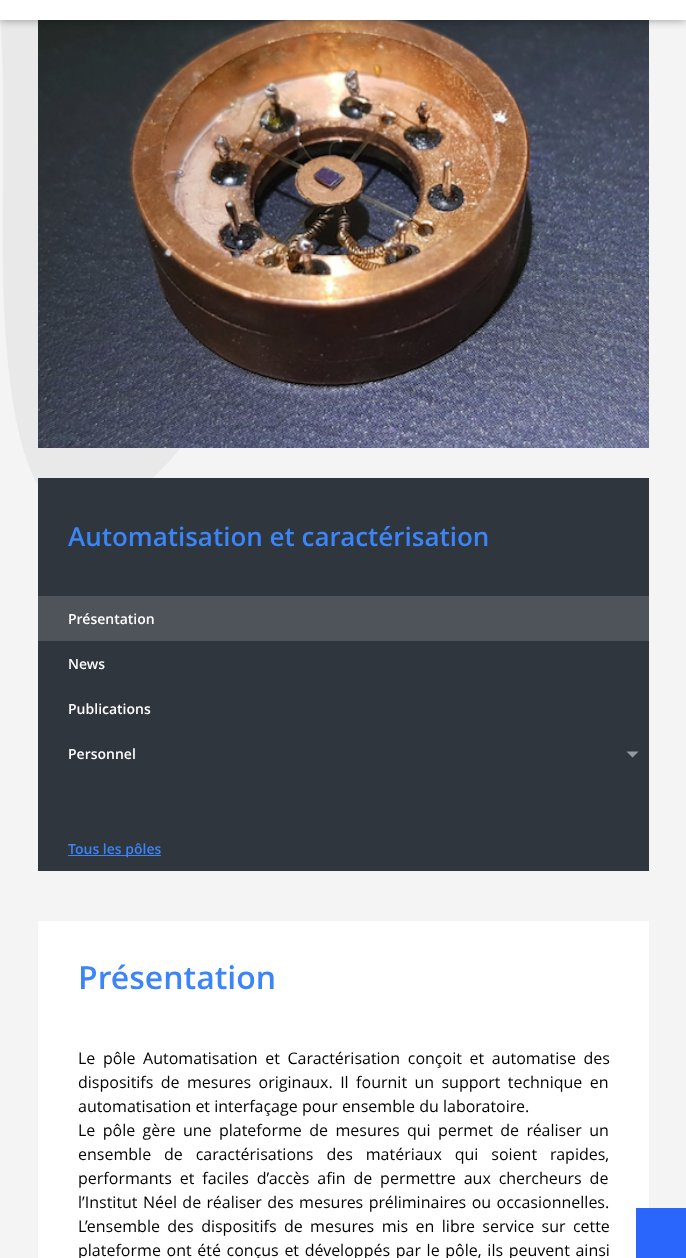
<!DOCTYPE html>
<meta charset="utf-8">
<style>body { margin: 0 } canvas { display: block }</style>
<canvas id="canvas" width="686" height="1258"></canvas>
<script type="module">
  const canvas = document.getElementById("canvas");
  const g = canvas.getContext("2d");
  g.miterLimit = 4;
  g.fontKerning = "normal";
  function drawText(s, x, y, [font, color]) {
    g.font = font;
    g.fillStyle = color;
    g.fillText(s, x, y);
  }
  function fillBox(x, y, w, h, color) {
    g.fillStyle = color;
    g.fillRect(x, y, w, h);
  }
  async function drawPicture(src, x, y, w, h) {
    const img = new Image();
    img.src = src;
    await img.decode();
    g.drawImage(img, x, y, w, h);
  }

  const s1 = ["600 26px Open Sans", "#3C85F6"];
  const s2 = ["600 14px Open Sans", "#FFFFFF"];
  const s3 = ["600 14px Open Sans", "#3C85F6"];
  const s4 = ["600 32px Open Sans", "#3C85F6"];
  const s5 = ["16px Open Sans", "#000000"];

  fillBox(0, 0, 686, 1258, "#F4F4F4");
  await drawPicture("pic1.png", 0, 20, 181, 466);
  await drawPicture("pic2.png", 38, 20, 611, 428);
  g.fillStyle = "rgba(0, 0, 0, 0.4)";
  g.filter = "blur(5px)";
  g.beginPath();
  g.rect(0, 0, 686, 20);
  g.fill();
  g.filter = "none";
  fillBox(0, 0, 686, 20, "#FFFFFF");
  fillBox(38, 478, 611, 393, "#2F363E");
  drawText("Automatisation et caractérisation", 68, 546, s1);
  fillBox(38, 596, 611, 45, "#4F545A");
  drawText("Présentation", 68, 624, s2);
  drawText("News", 68, 669, s2);
  drawText("Publications", 68, 714, s2);
  await drawPicture("pic3.png", 626, 751, 13, 7);
  drawText("Personnel", 68, 759, s2);
  fillBox(68, 855, 93, 1, "#3C85F6");
  drawText("Tous les pôles", 68, 854, s3);
  fillBox(38, 921, 611, 337, "#FFFFFF");
  drawText("Présentation", 78, 989, s4);
  g.wordSpacing = "3.5px";
  drawText("Le pôle Automatisation et Caractérisation conçoit et automatise des", 78, 1064, s5);
  g.wordSpacing = "3.25px";
  drawText("dispositifs de mesures originaux. Il fournit un support technique en", 78, 1088, s5);
  g.wordSpacing = "0px";
  drawText("automatisation et interfaçage pour ensemble du laboratoire.", 78, 1112, s5);
  g.wordSpacing = "3.25px";
  drawText("Le pôle gère une plateforme de mesures qui permet de réaliser un", 78, 1136, s5);
  g.wordSpacing = "8.75px";
  drawText("ensemble de caractérisations des matériaux qui soient rapides,", 78, 1160, s5);
  g.wordSpacing = "3.75px";
  drawText("performants et faciles d’accès afin de permettre aux chercheurs de", 78, 1184, s5);
  g.wordSpacing = "1.25px";
  drawText("l’Institut Néel de réaliser des mesures préliminaires ou occasionnelles.", 78, 1208, s5);
  g.wordSpacing = "3.25px";
  drawText("L’ensemble des dispositifs de mesures mis en libre service sur cette", 78, 1232, s5);
  g.wordSpacing = "1.5px";
  drawText("plateforme ont été conçus et développés par le pôle, ils peuvent ainsi", 78, 1256, s5);
  fillBox(636, 1208, 50, 50, "#2B66FC");
</script>
